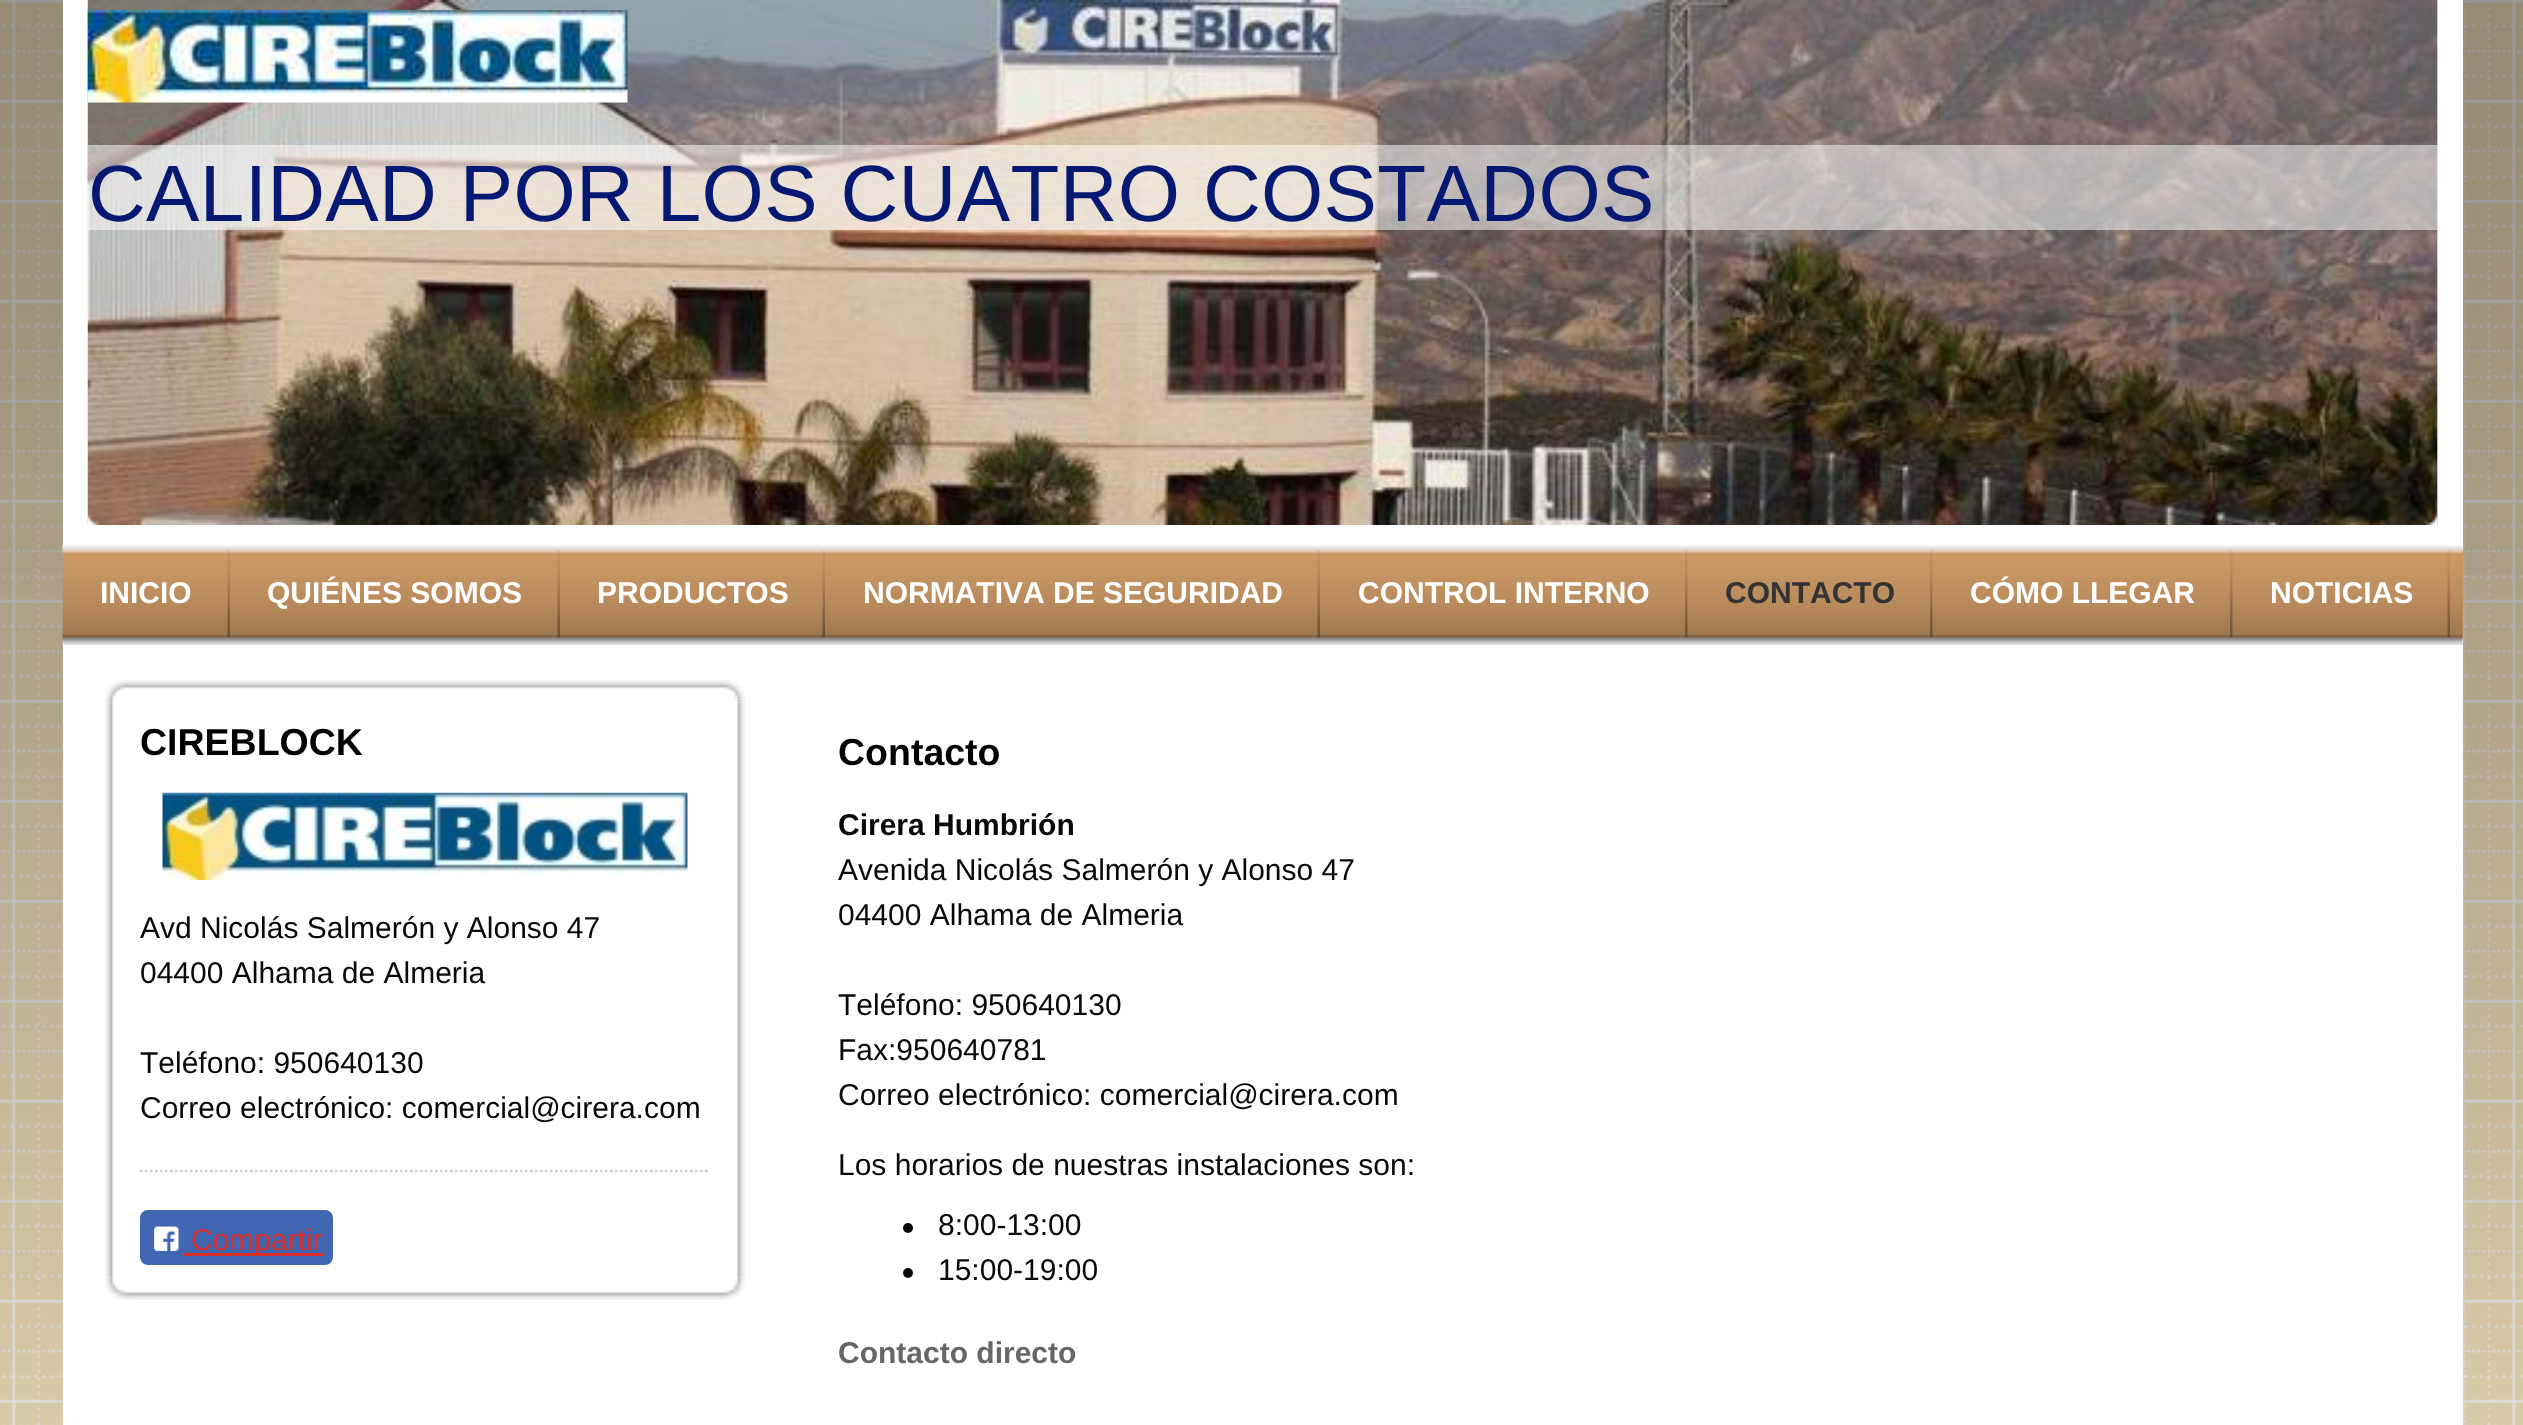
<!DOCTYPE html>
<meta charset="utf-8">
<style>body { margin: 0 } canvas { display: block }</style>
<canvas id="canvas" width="2523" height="1425"></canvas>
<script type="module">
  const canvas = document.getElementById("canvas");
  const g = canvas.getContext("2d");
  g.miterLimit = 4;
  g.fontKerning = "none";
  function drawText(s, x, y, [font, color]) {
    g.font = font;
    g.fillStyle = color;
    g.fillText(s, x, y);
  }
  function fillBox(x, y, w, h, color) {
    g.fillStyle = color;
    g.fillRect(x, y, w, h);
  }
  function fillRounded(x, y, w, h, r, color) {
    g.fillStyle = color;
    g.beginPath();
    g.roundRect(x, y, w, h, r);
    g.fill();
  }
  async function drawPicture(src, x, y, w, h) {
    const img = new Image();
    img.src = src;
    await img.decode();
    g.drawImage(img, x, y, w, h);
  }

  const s1 = ["80px Liberation Sans", "#051972"];
  const s2 = ["bold 30px Liberation Sans", "#FFFFFF"];
  const s3 = ["bold 30px Liberation Sans", "#333333"];
  const s4 = ["bold 37.5px Liberation Sans", "#000000"];
  const s5 = ["30px Liberation Sans", "#090808"];
  const s6 = ["30px Liberation Sans", "#DB2F2C"];
  const s7 = ["bold 30px Liberation Sans", "#090808"];
  const s8 = ["bold 30px Liberation Sans", "#666666"];

  fillBox(0, 0, 2523, 1425, "#F9E7C1");
  await drawPicture("pic1.png", 0, 0, 2523, 1425);
  await drawPicture("pic2.png", 0, 0, 2523, 1425);
  fillBox(63, 0, 2400, 1425, "#FFFFFF");
  fillBox(2437, 0, 1, 525, "#EEEEEE");
  await drawPicture("pic3.png", 87, 0, 2351, 525);
  await drawPicture("pic4.png", 87, 10, 541, 93);
  fillBox(88, 145, 2350, 85, "rgba(255, 255, 255, 0.52)");
  g.letterSpacing = "0.35px";
  drawText("CALIDAD POR LOS CUATRO COSTADOS", 88, 221, s1);
  await drawPicture("pic5.png", 87, 512, 13, 13);
  await drawPicture("pic6.png", 2425, 512, 13, 13);
  await drawPicture("pic7.png", 62, 545, 2401, 5);
  fillBox(63, 550, 2400, 88, "#CC9966");
  await drawPicture("pic11.png", 62, 637, 2401, 8);
  await drawPicture("pic8.png", 62, 550, 2401, 88);
  await drawPicture("pic9.png", 227, 550, 3, 88);
  g.letterSpacing = "0px";
  drawText("INICIO", 100, 603, s2);
  await drawPicture("pic9.png", 557, 550, 3, 88);
  drawText("QUIÉNES SOMOS", 267, 603, s2);
  await drawPicture("pic9.png", 822, 550, 3, 88);
  drawText("PRODUCTOS", 597, 603, s2);
  await drawPicture("pic9.png", 1317, 550, 3, 88);
  drawText("NORMATIVA", 863, 603, s2);
  drawText("DE SEGURIDAD", 1053, 603, s2);
  await drawPicture("pic10.png", 1685, 550, 3, 88);
  drawText("CONTROL INTERNO", 1358, 603, s2);
  await drawPicture("pic10.png", 1930, 550, 3, 88);
  drawText("CONTACTO", 1725, 603, s3);
  await drawPicture("pic10.png", 2230, 550, 3, 88);
  drawText("CÓMO LLEGAR", 1970, 603, s2);
  await drawPicture("pic9.png", 2447, 550, 3, 88);
  drawText("NOTICIAS", 2270, 603, s2);
  await drawPicture("pic12.png", 105, 680, 640, 23);
  await drawPicture("pic13.png", 105, 702, 640, 576);
  drawText("CIREBLOCK", 140, 755, s4);
  await drawPicture("pic14.png", 162, 792, 526, 88);
  drawText("Avd Nicolás Salmerón y Alonso 47", 140, 938, s5);
  drawText("04400 Alhama de Almeria", 140, 983, s5);
  drawText("Teléfono: 950640130", 140, 1073, s5);
  drawText("Correo electrónico: comercial@cirera.com ", 140, 1118, s5);
  g.beginPath();
  g.moveTo(140, 1171);
  g.lineTo(710, 1171);
  g.strokeStyle = "#CCCCCC";
  g.lineWidth = 2.5;
  g.setLineDash([2.5, 2.5]);
  g.stroke();
  fillRounded(140, 1210, 193, 55, 8, "#4267B2");
  await drawPicture("pic15.png", 154, 1226, 25, 25);
  fillBox(183, 1253, 140, 3, "#DB2F2C");
  drawText("Compartir", 191, 1250, s6);
  await drawPicture("pic16.png", 105, 1277, 640, 23);
  drawText("Contacto", 838, 765, s4);
  drawText("Cirera Humbrión", 838, 835, s7);
  drawText("Avenida Nicolás Salmerón y Alonso 47", 838, 880, s5);
  drawText("04400 Alhama de Almeria", 838, 925, s5);
  drawText("Teléfono: 950640130", 838, 1015, s5);
  drawText("Fax:950640781", 838, 1060, s5);
  drawText("Correo electrónico: comercial@cirera.com", 838, 1105, s5);
  drawText("Los horarios de nuestras instalaciones son:", 838, 1175, s5);
  g.beginPath();
  g.arc(908, 1228, 5, 0, Math.PI * 2);
  g.fill();
  drawText("8:00-13:00", 938, 1235, s5);
  g.beginPath();
  g.arc(908, 1273, 5, 0, Math.PI * 2);
  g.fill();
  drawText("15:00-19:00", 938, 1280, s5);
  drawText("Contacto directo", 838, 1363, s8);
</script>
